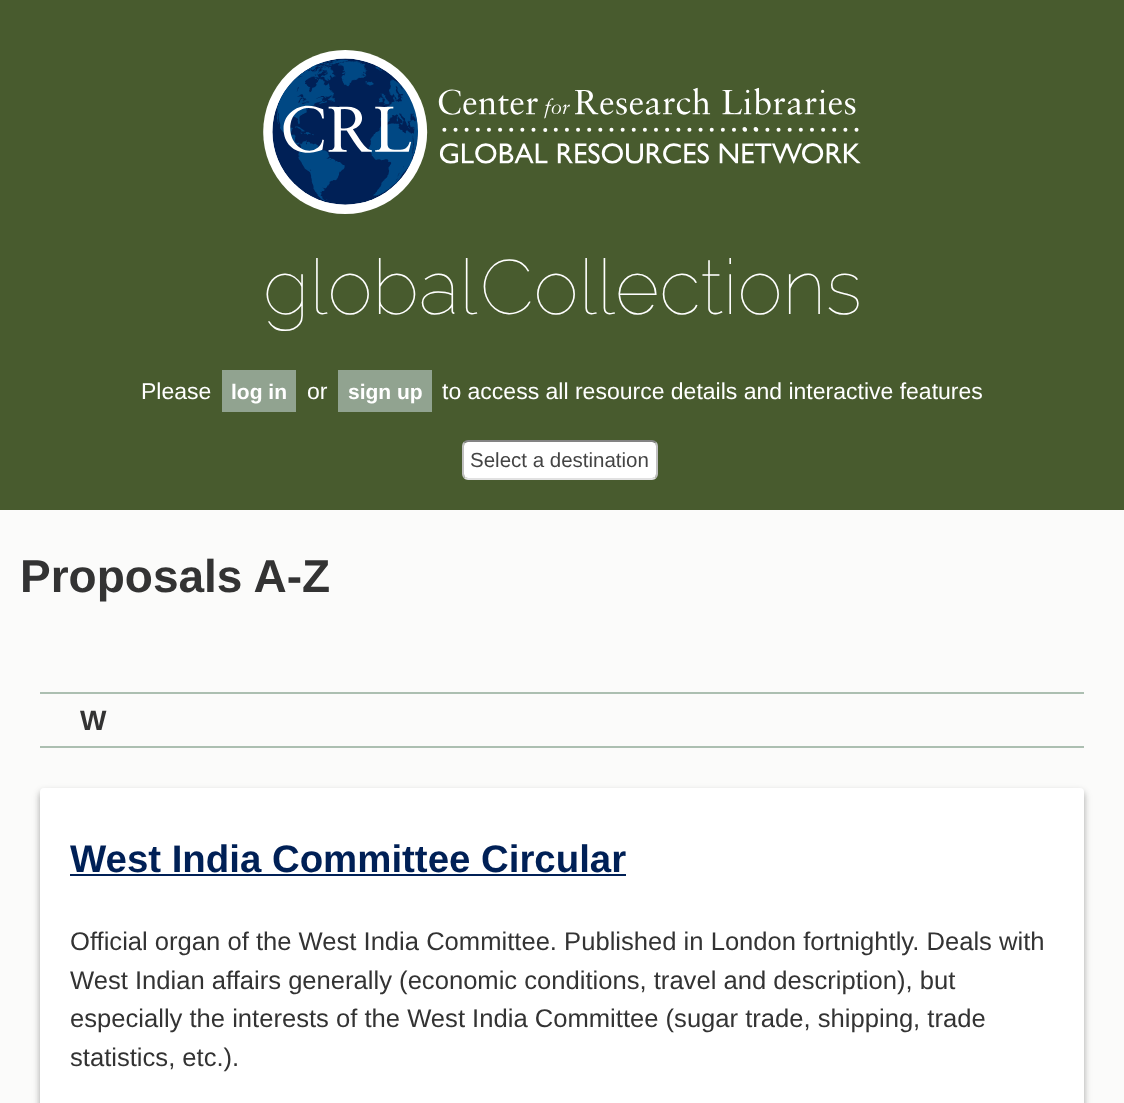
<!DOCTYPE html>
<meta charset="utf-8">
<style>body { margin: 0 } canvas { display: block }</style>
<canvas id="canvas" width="1124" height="1103"></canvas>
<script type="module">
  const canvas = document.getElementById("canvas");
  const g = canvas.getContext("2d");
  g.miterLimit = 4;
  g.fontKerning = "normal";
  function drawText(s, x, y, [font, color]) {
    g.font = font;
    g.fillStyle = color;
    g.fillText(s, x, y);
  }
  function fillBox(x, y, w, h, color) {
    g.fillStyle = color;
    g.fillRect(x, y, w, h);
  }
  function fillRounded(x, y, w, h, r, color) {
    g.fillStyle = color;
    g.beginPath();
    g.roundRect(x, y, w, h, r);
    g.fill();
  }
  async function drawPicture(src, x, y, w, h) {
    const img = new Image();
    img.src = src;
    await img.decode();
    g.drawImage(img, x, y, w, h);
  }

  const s1 = ["100 76.75px Raleway", "#FFFFFF"];
  const s2 = ["23px Liberation Sans", "#FFFFFF"];
  const s3 = ["bold 21px Liberation Sans", "#FFFFFF"];
  const s4 = ["20.5px Liberation Sans", "#444444"];
  const s5 = ["bold 46px Liberation Sans", "#333333"];
  const s6 = ["bold 28px Liberation Sans", "#333333"];
  const s7 = ["bold 38.4px Liberation Sans", "#002056"];
  const s8 = ["25.6px Liberation Sans", "#333333"];

  fillBox(0, 0, 1124, 1103, "#FBFBFA");
  fillBox(0, 0, 1124, 510, "#485B2E");
  await drawPicture("pic1.png", 263, 50, 598, 164);
  g.wordSpacing = "-15px";
  drawText("global Collections", 263, 314, s1);
  g.wordSpacing = "0px";
  drawText("Please", 141, 399, s2);
  fillBox(222, 370, 74, 42, "#91A390");
  drawText("log in", 231, 399, s3);
  drawText("or", 307, 399, s2);
  fillBox(338, 370, 94, 42, "#91A390");
  drawText("sign up", 348, 399, s3);
  drawText("to access all resource details and interactive features", 442, 399, s2);
  fillRounded(464, 442, 192, 36, 4, "#FFFFFF");
  g.beginPath();
  g.moveTo(464.5, 442.5);
  g.bezierCurveTo(465.5, 441.5, 466.5, 441, 468, 441);
  g.lineTo(652, 441);
  g.bezierCurveTo(653.5, 441, 654.5, 441.5, 655.5, 442.5);
  g.strokeStyle = "#848484";
  g.lineWidth = 2;
  g.stroke();
  g.beginPath();
  g.moveTo(655.5, 442.5);
  g.bezierCurveTo(656.5, 443.5, 657, 444.5, 657, 446);
  g.lineTo(657, 474);
  g.bezierCurveTo(657, 475.5, 656.5, 476.5, 655.5, 477.5);
  g.strokeStyle = "#C1C1C1";
  g.stroke();
  g.beginPath();
  g.moveTo(655.5, 477.5);
  g.bezierCurveTo(654.5, 478.5, 653.5, 479, 652, 479);
  g.lineTo(468, 479);
  g.bezierCurveTo(466.5, 479, 465.5, 478.5, 464.5, 477.5);
  g.strokeStyle = "#E1E1E1";
  g.stroke();
  g.beginPath();
  g.moveTo(464.5, 477.5);
  g.bezierCurveTo(463.5, 476.5, 463, 475.5, 463, 474);
  g.lineTo(463, 446);
  g.bezierCurveTo(463, 444.5, 463.5, 443.5, 464.5, 442.5);
  g.strokeStyle = "#C1C1C1";
  g.stroke();
  drawText("Select a destination", 470, 467, s4);
  drawText("Proposals A-Z", 20, 592, s5);
  fillBox(40, 692, 1044, 2, "#ACBFB1");
  fillBox(40, 746, 1044, 2, "#ACBFB1");
  drawText("W", 80, 730, s6);
  g.fillStyle = "rgba(0, 0, 0, 0.24)";
  g.filter = "blur(3px)";
  g.beginPath();
  g.roundRect(40, 792, 1044, 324, 4);
  g.fill();
  g.filter = "none";
  g.fillStyle = "rgba(0, 0, 0, 0.12)";
  g.filter = "blur(4px)";
  g.beginPath();
  g.roundRect(40, 792, 1044, 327, 4);
  g.fill();
  g.filter = "none";
  fillRounded(40, 788, 1044, 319, 4, "#FFFFFF");
  drawText("West India Committee Circular", 70, 872, s7);
  fillBox(70, 874, 556, 2, "#002056");
  drawText("Official organ of the West India Committee. Published in London fortnightly. Deals with", 70, 950, s8);
  drawText("West Indian affairs generally (economic conditions, travel and description), but", 70, 989, s8);
  drawText("especially the interests of the West India Committee (sugar trade, shipping, trade", 70, 1027, s8);
  drawText("statistics, etc.).", 70, 1066, s8);
</script>
